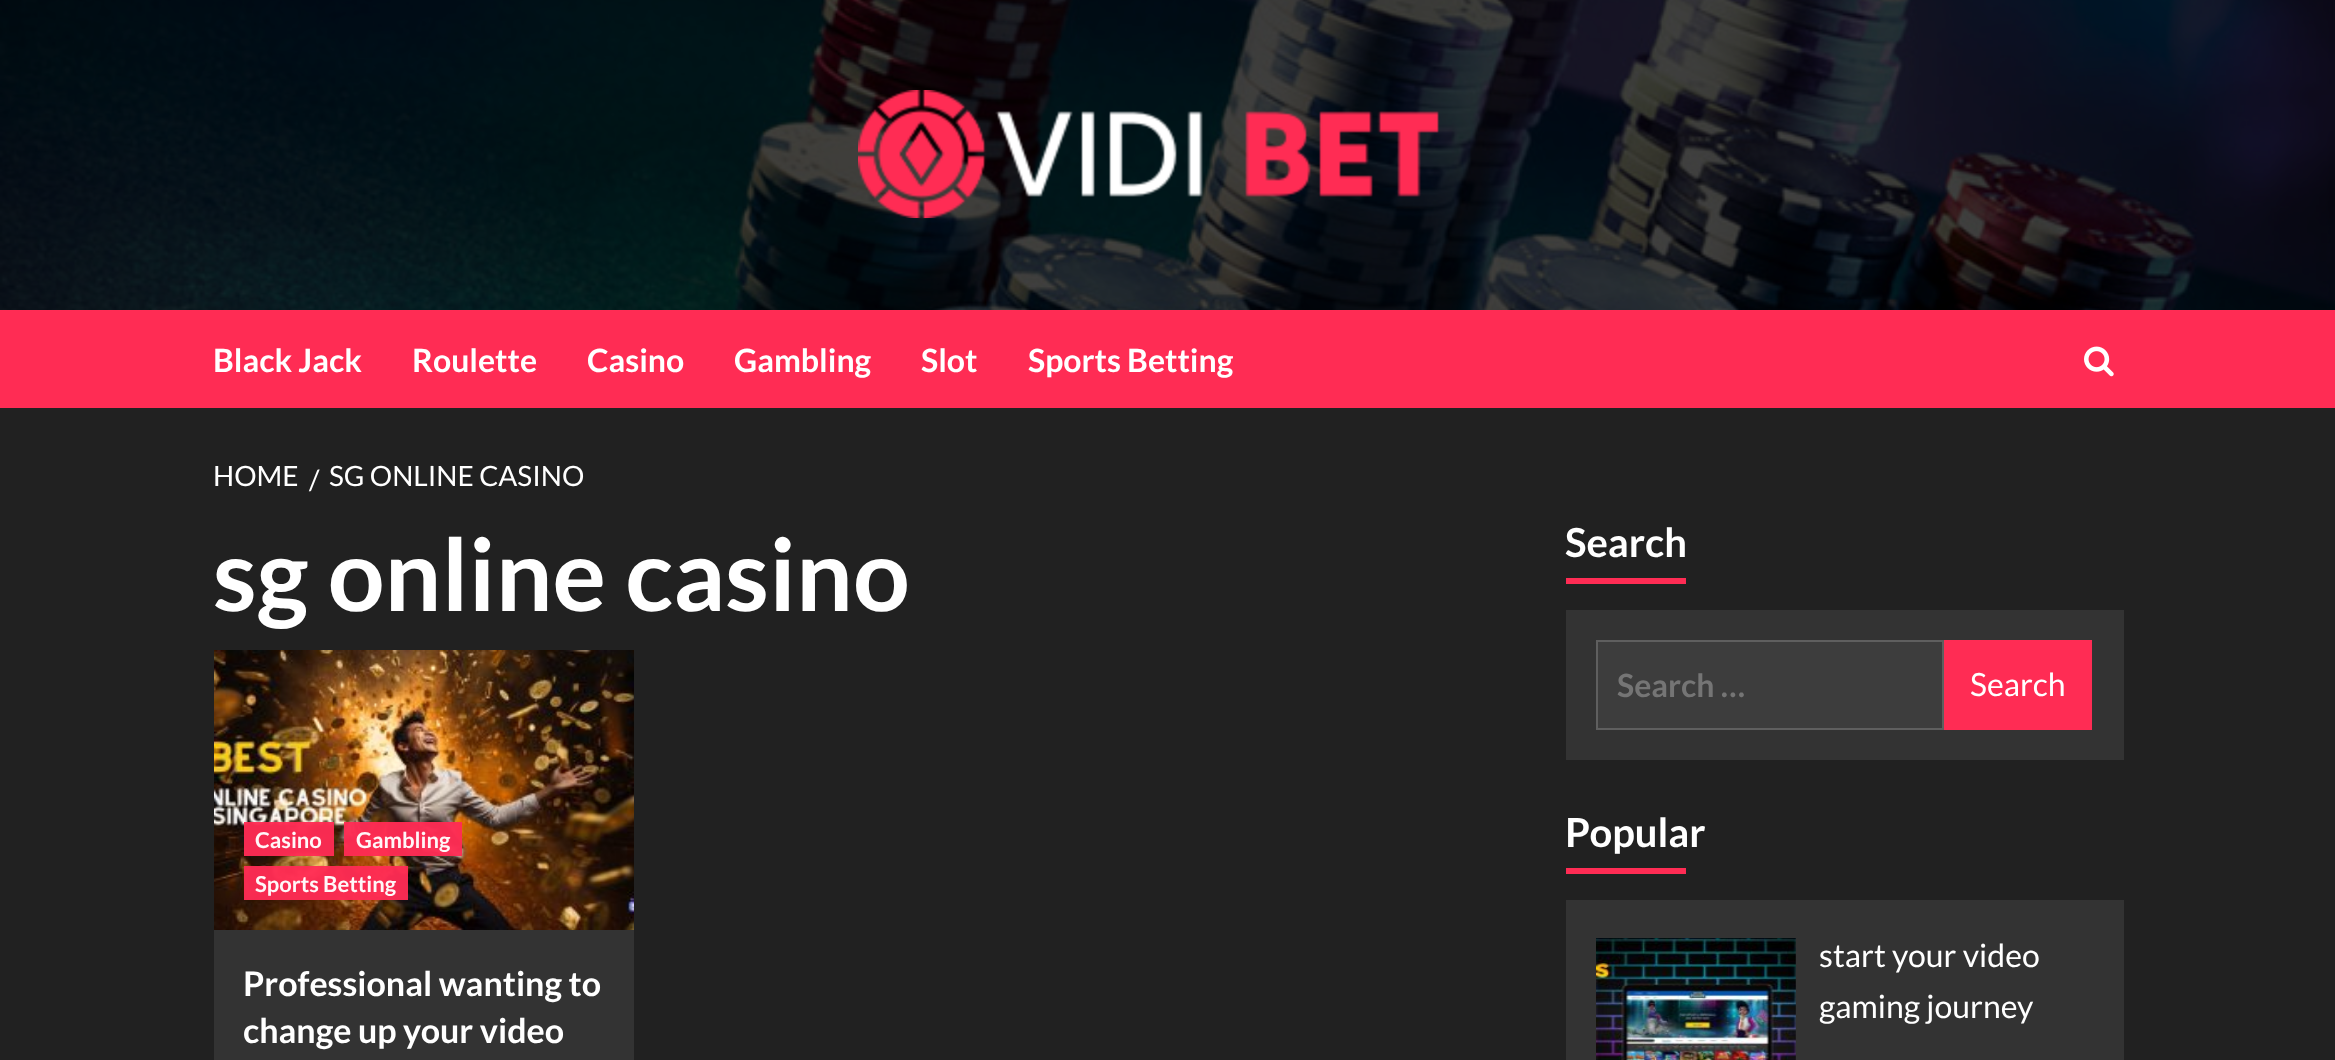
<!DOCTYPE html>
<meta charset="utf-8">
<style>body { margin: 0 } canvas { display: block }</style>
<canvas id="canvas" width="2335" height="1060"></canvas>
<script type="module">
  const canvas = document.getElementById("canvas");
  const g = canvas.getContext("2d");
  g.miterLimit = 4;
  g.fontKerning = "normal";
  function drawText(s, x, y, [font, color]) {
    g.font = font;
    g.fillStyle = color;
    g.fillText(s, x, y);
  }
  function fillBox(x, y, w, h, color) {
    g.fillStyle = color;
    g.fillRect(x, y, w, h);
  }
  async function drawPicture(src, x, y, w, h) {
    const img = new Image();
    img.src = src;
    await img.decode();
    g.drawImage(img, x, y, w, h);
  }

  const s1 = ["bold 32px Lato", "#FFFFFF"];
  const s2 = ["28px Lato", "#FFFFFF"];
  const s3 = ["bold 100px Lato", "#FFFFFF"];
  const s4 = ["bold 22px Lato", "#FFF7F8"];
  const s5 = ["bold 34px Lato", "#FFFFFF"];
  const s6 = ["bold 40px Lato", "#FFFFFF"];
  const s7 = ["bold 32px Lato", "#757575"];
  const s8 = ["32px Lato", "#FFFFFF"];

  fillBox(0, 0, 2335, 1060, "#212121");
  await drawPicture("pic1.png", 0, 0, 2335, 310);
  await drawPicture("pic2.png", 858, 90, 581, 128);
  fillBox(0, 310, 2335, 98, "#FF2C54");
  drawText("Black Jack", 213, 372, s1);
  drawText("Roulette", 412, 372, s1);
  drawText("Casino", 587, 372, s1);
  drawText("Gambling", 734, 372, s1);
  drawText("Slot", 921, 372, s1);
  drawText("Sports Betting", 1028, 372, s1);
  await drawPicture("pic3.png", 2084, 346, 30, 31);
  drawText("HOME", 213, 486, s2);
  drawText("/", 309, 490, s2);
  drawText("SG ONLINE CASINO", 329, 486, s2);
  drawText("sg online casino", 213, 611, s3);
  fillBox(214, 930, 420, 130, "#333333");
  await drawPicture("pic4.png", 214, 650, 420, 280);
  fillBox(244, 822, 90, 34, "rgba(255, 44, 84, 0.96)");
  drawText("Casino", 255, 848, s4);
  fillBox(344, 822, 118, 34, "rgba(255, 44, 84, 0.96)");
  drawText("Gambling", 356, 848, s4);
  fillBox(244, 866, 164, 34, "rgba(255, 44, 84, 0.96)");
  drawText("Sports Betting", 255, 892, s4);
  drawText("Professional wanting to", 243, 996, s5);
  drawText("change up your video", 243, 1043, s5);
  drawText("Search", 1565, 557, s6);
  fillBox(1566, 578, 120, 6, "#FF2C54");
  fillBox(1566, 610, 558, 150, "#333333");
  g.fillStyle = "#3D3D3D";
  g.beginPath();
  g.rect(1597, 641, 346, 88);
  g.fill();
  g.strokeStyle = "#5F5F5F";
  g.lineWidth = 2;
  g.stroke();
  drawText("Search …", 1617, 697, s7);
  fillBox(1944, 640, 148, 90, "#FF2C54");
  drawText("Search", 1970, 696, s8);
  drawText("Popular", 1565, 847, s6);
  fillBox(1566, 868, 120, 6, "#FF2C54");
  fillBox(1566, 900, 558, 160, "#333333");
  await drawPicture("pic5.png", 1596, 938, 200, 122);
  drawText("start your video", 1819, 967, s8);
  drawText("gaming journey", 1819, 1018, s8);
</script>
